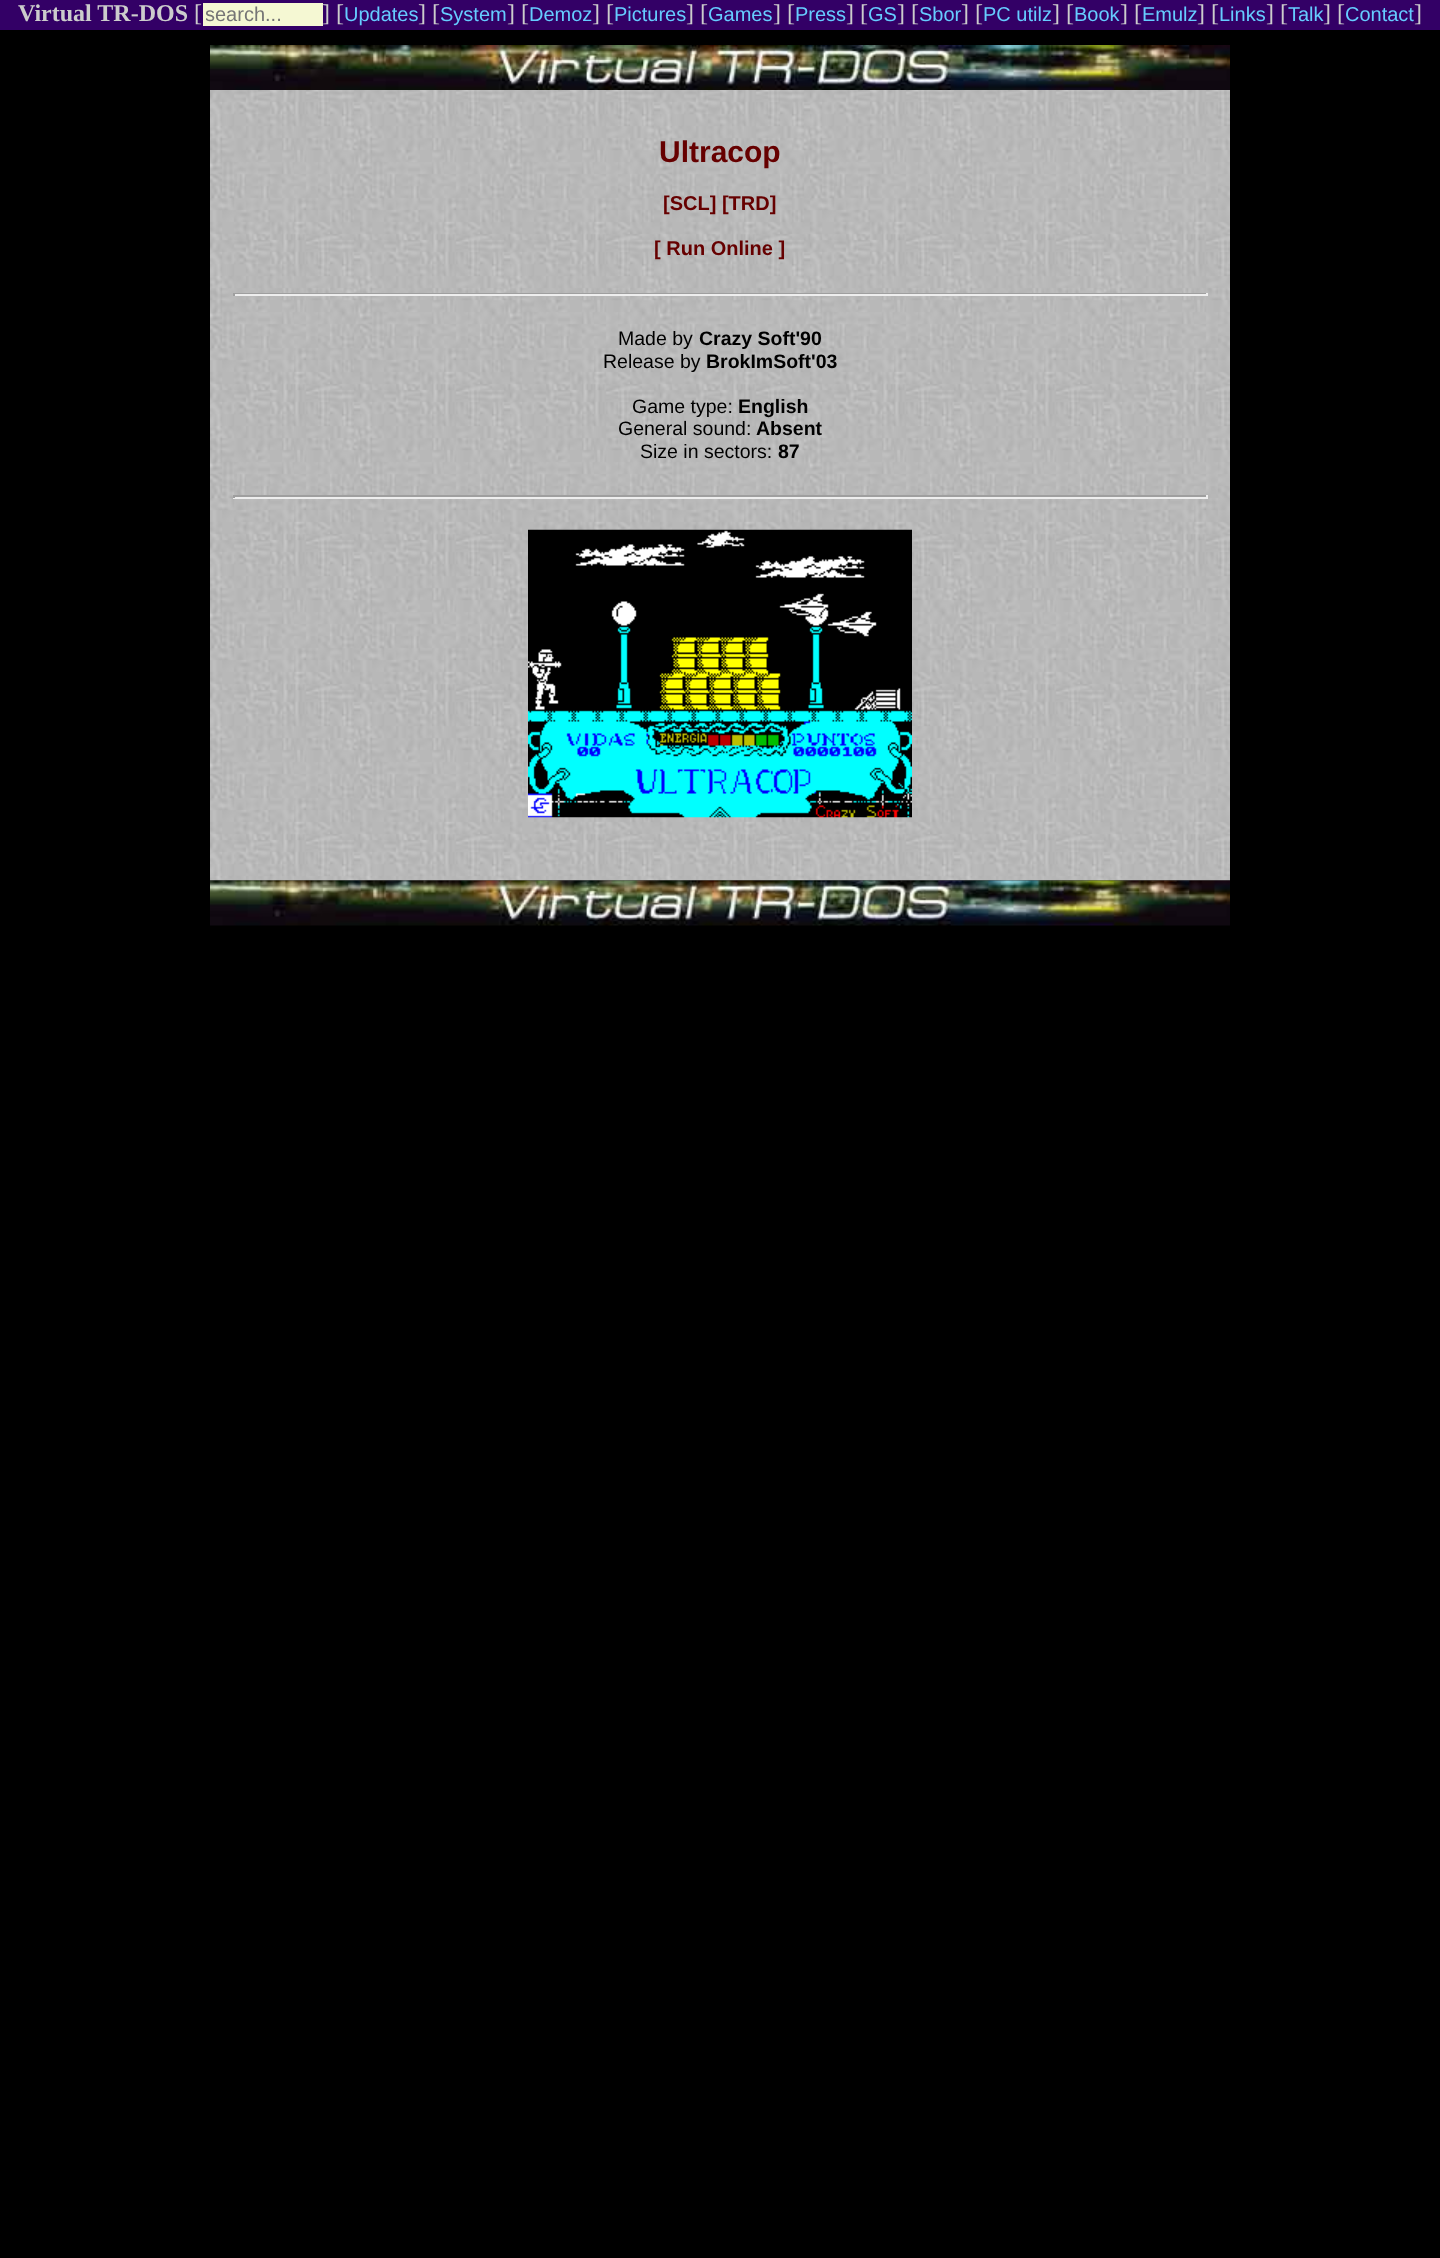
<!DOCTYPE html>
<meta charset="utf-8">
<style>body { margin: 0 } canvas { display: block }</style>
<canvas id="canvas" width="1440" height="2258"></canvas>
<script type="module">
  const canvas = document.getElementById("canvas");
  const g = canvas.getContext("2d");
  g.miterLimit = 4;
  g.fontKerning = "normal";
  function drawText(s, x, y, [font, color]) {
    g.font = font;
    g.fillStyle = color;
    g.fillText(s, x, y);
  }
  function fillBox(x, y, w, h, color) {
    g.fillStyle = color;
    g.fillRect(x, y, w, h);
  }
  async function drawPicture(src, x, y, w, h) {
    const img = new Image();
    img.src = src;
    await img.decode();
    g.drawImage(img, x, y, w, h);
  }

  const s1 = ["bold 24px Liberation Serif", "#CCCCCC"];
  const s2 = ["24px Liberation Serif", "#CCCCCC"];
  const s3 = ["20px Liberation Sans", "#757575"];
  const s4 = ["20px Liberation Sans", "#66CCFF"];
  const s5 = ["bold 30px Liberation Sans", "#660000"];
  const s6 = ["bold 20px Liberation Sans", "#660000"];
  const s7 = ["19.5px Liberation Sans", "#000000"];
  const s8 = ["bold 19.5px Liberation Sans", "#000000"];

  fillBox(0, 0, 1440, 2258, "#000000");
  fillBox(0, 0, 1440, 30, "#330066");
  drawText("Virtual TR-DOS", 18, 21, s1);
  drawText("[", 194, 21, s2);
  fillBox(203, 3, 120, 23, "#F5F8D3");
  g.save();
  g.beginPath();
  g.rect(206, 3, 114, 23);
  g.clip();
  drawText("search...", 205, 21, s3);
  g.restore();
  drawText("] [", 322, 21, s2);
  drawText("Updates", 344, 21, s4);
  drawText("] [", 418, 21, s2);
  drawText("System", 440, 21, s4);
  drawText("] [", 507, 21, s2);
  drawText("Demoz", 529, 21, s4);
  drawText("] [", 592, 21, s2);
  drawText("Pictures", 614, 21, s4);
  drawText("] [", 686, 21, s2);
  drawText("Games", 708, 21, s4);
  drawText("] [", 773, 21, s2);
  drawText("Press", 795, 21, s4);
  drawText("] [", 846, 21, s2);
  drawText("GS", 868, 21, s4);
  drawText("] [", 897, 21, s2);
  drawText("Sbor", 919, 21, s4);
  drawText("] [", 961, 21, s2);
  drawText("PC utilz", 983, 21, s4);
  drawText("] [", 1052, 21, s2);
  drawText("Book", 1074, 21, s4);
  drawText("] [", 1120, 21, s2);
  drawText("Emulz", 1142, 21, s4);
  drawText("] [", 1197, 21, s2);
  drawText("Links", 1219, 21, s4);
  drawText("] [", 1266, 21, s2);
  drawText("Talk", 1288, 21, s4);
  drawText("] [", 1323, 21, s2);
  drawText("Contact", 1345, 21, s4);
  drawText("]", 1414, 21, s2);
  await drawPicture("pic1.png", 210, 45, 1020, 45);
  await drawPicture("pic2.png", 210, 90, 1020, 791);
  drawText("Ultracop", 659, 162, s5);
  drawText("[SCL] [TRD]", 663, 210, s6);
  drawText("[ Run Online ]", 654, 255, s6);
  fillBox(233, 293, 975, 1, "#9F9F9F");
  fillBox(1206, 293, 2, 3, "#EEEEEE");
  fillBox(233, 294, 975, 2, "#EEEEEE");
  fillBox(233, 293, 2, 3, "#9F9F9F");
  drawText("Made by", 618, 345, s7);
  drawText("Crazy Soft'90", 699, 345, s8);
  drawText("Release by", 603, 368, s7);
  drawText("BrokImSoft'03", 706, 368, s8);
  drawText("Game type:", 632, 413, s7);
  drawText("English", 738, 413, s8);
  drawText("General sound:", 618, 435, s7);
  drawText("Absent", 756, 435, s8);
  drawText("Size in sectors:", 640, 458, s7);
  drawText("87", 778, 458, s8);
  fillBox(233, 495, 975, 2, "#9F9F9F");
  fillBox(1206, 495, 2, 3, "#EEEEEE");
  fillBox(233, 497, 975, 2, "#EEEEEE");
  fillBox(233, 495, 2, 3, "#9F9F9F");
  await drawPicture("pic3.png", 528, 529, 384, 289);
  await drawPicture("pic4.png", 210, 880, 1020, 46);
</script>
